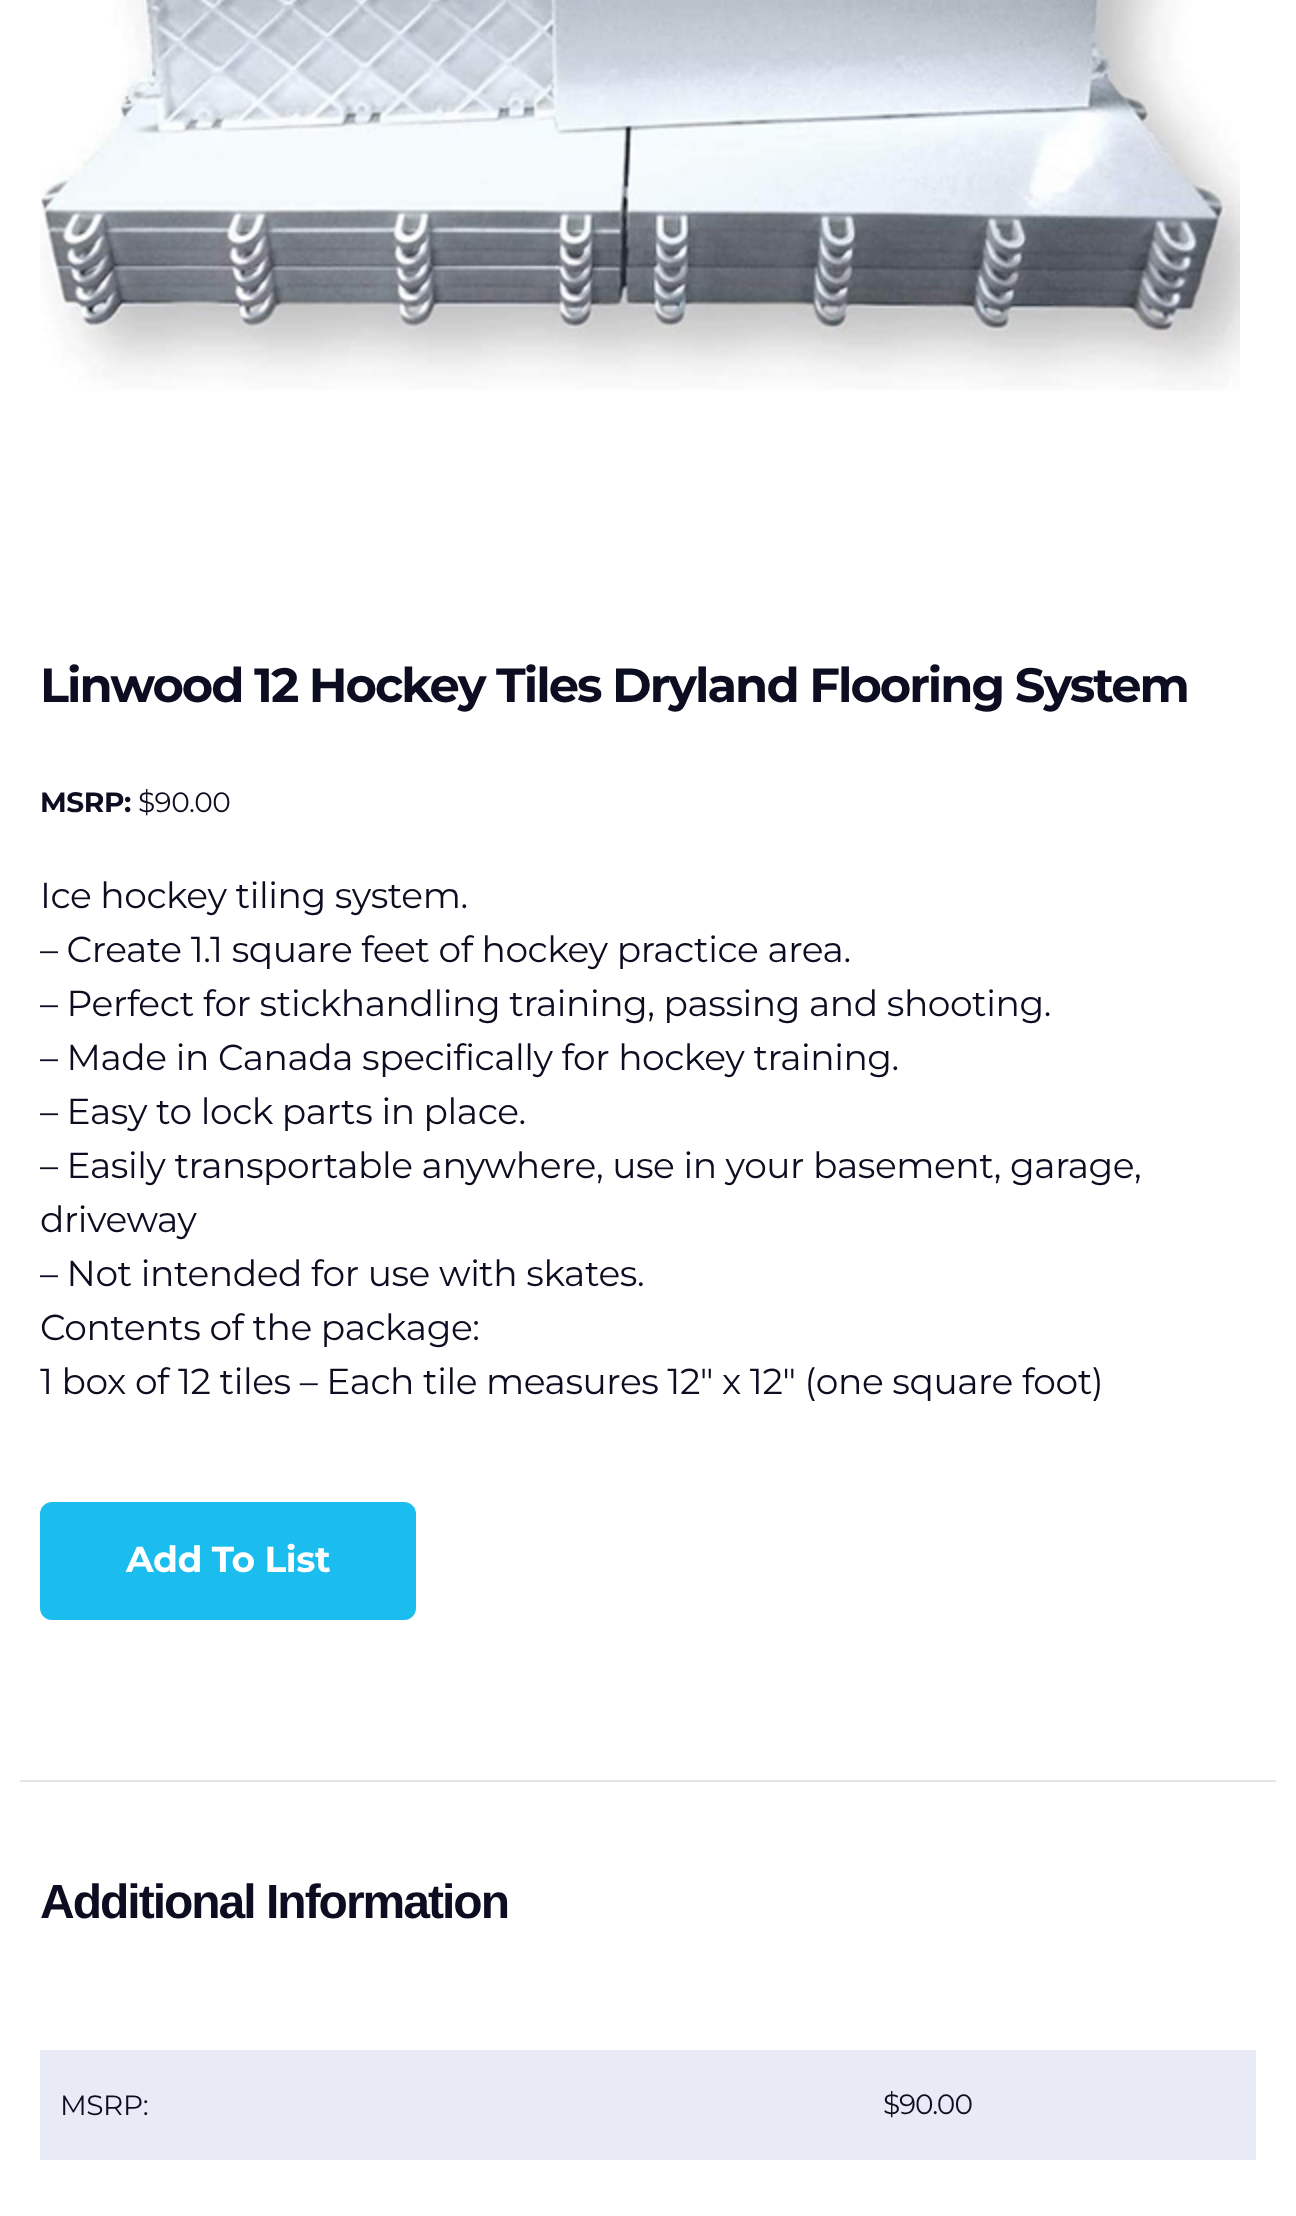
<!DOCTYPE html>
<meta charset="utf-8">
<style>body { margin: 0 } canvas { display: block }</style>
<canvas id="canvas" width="1296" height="2216"></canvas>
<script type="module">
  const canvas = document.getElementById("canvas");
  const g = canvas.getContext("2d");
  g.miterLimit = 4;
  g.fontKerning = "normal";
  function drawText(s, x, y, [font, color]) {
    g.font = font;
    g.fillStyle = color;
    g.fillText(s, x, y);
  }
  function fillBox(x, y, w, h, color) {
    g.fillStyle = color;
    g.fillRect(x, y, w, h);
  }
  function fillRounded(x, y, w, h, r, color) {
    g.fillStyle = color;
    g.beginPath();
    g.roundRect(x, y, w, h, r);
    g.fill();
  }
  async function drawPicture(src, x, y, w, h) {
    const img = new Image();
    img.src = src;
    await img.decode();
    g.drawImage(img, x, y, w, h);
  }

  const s1 = ["bold 48px Montserrat", "#0C0D21"];
  const s2 = ["bold 28px Montserrat", "#0C0D21"];
  const s3 = ["28px Montserrat", "#0C0D21"];
  const s4 = ["36px Montserrat", "#0C0D21"];
  const s5 = ["bold 36px Montserrat", "#FFFFFF"];
  const s6 = ["bold 48px Liberation Sans", "#0C0D21"];

  fillBox(0, 0, 1296, 2216, "#FFFFFF");
  await drawPicture("pic1.png", 40, 0, 1200, 391);
  g.letterSpacing = "-2px";
  drawText("Linwood 12 Hockey Tiles Dryland Flooring System", 40, 702, s1);
  g.letterSpacing = "-0.42px";
  drawText("MSRP:", 40, 812, s2);
  drawText("$90.00", 138, 812, s3);
  drawText("Ice hockey tiling system.", 40, 908, s4);
  drawText("– Create 1.1 square feet of hockey practice area.", 40, 962, s4);
  drawText("– Perfect for stickhandling training, passing and shooting.", 40, 1016, s4);
  drawText("– Made in Canada specifically for hockey training.", 40, 1070, s4);
  drawText("– Easy to lock parts in place.", 40, 1124, s4);
  drawText("– Easily transportable anywhere, use in your basement, garage,", 40, 1178, s4);
  drawText("driveway", 40, 1232, s4);
  drawText("– Not intended for use with skates.", 40, 1286, s4);
  drawText("Contents of the package:", 40, 1340, s4);
  drawText("1 box of 12 tiles – Each tile measures 12″ x 12″ (one square foot)", 40, 1394, s4);
  fillRounded(40, 1502, 376, 118, 12, "#1ABDED");
  drawText("Add To List", 126, 1572, s5);
  fillBox(20, 1780, 1256, 2, "#E5E5E5");
  g.letterSpacing = "-2px";
  drawText("Additional Information", 40, 1918, s6);
  fillBox(40, 2050, 1216, 110, "#E8EBF5");
  g.letterSpacing = "-0.42px";
  drawText("MSRP:", 60, 2115, s3);
  g.letterSpacing = "-1px";
  drawText("$90.00", 883, 2114, s3);
</script>
